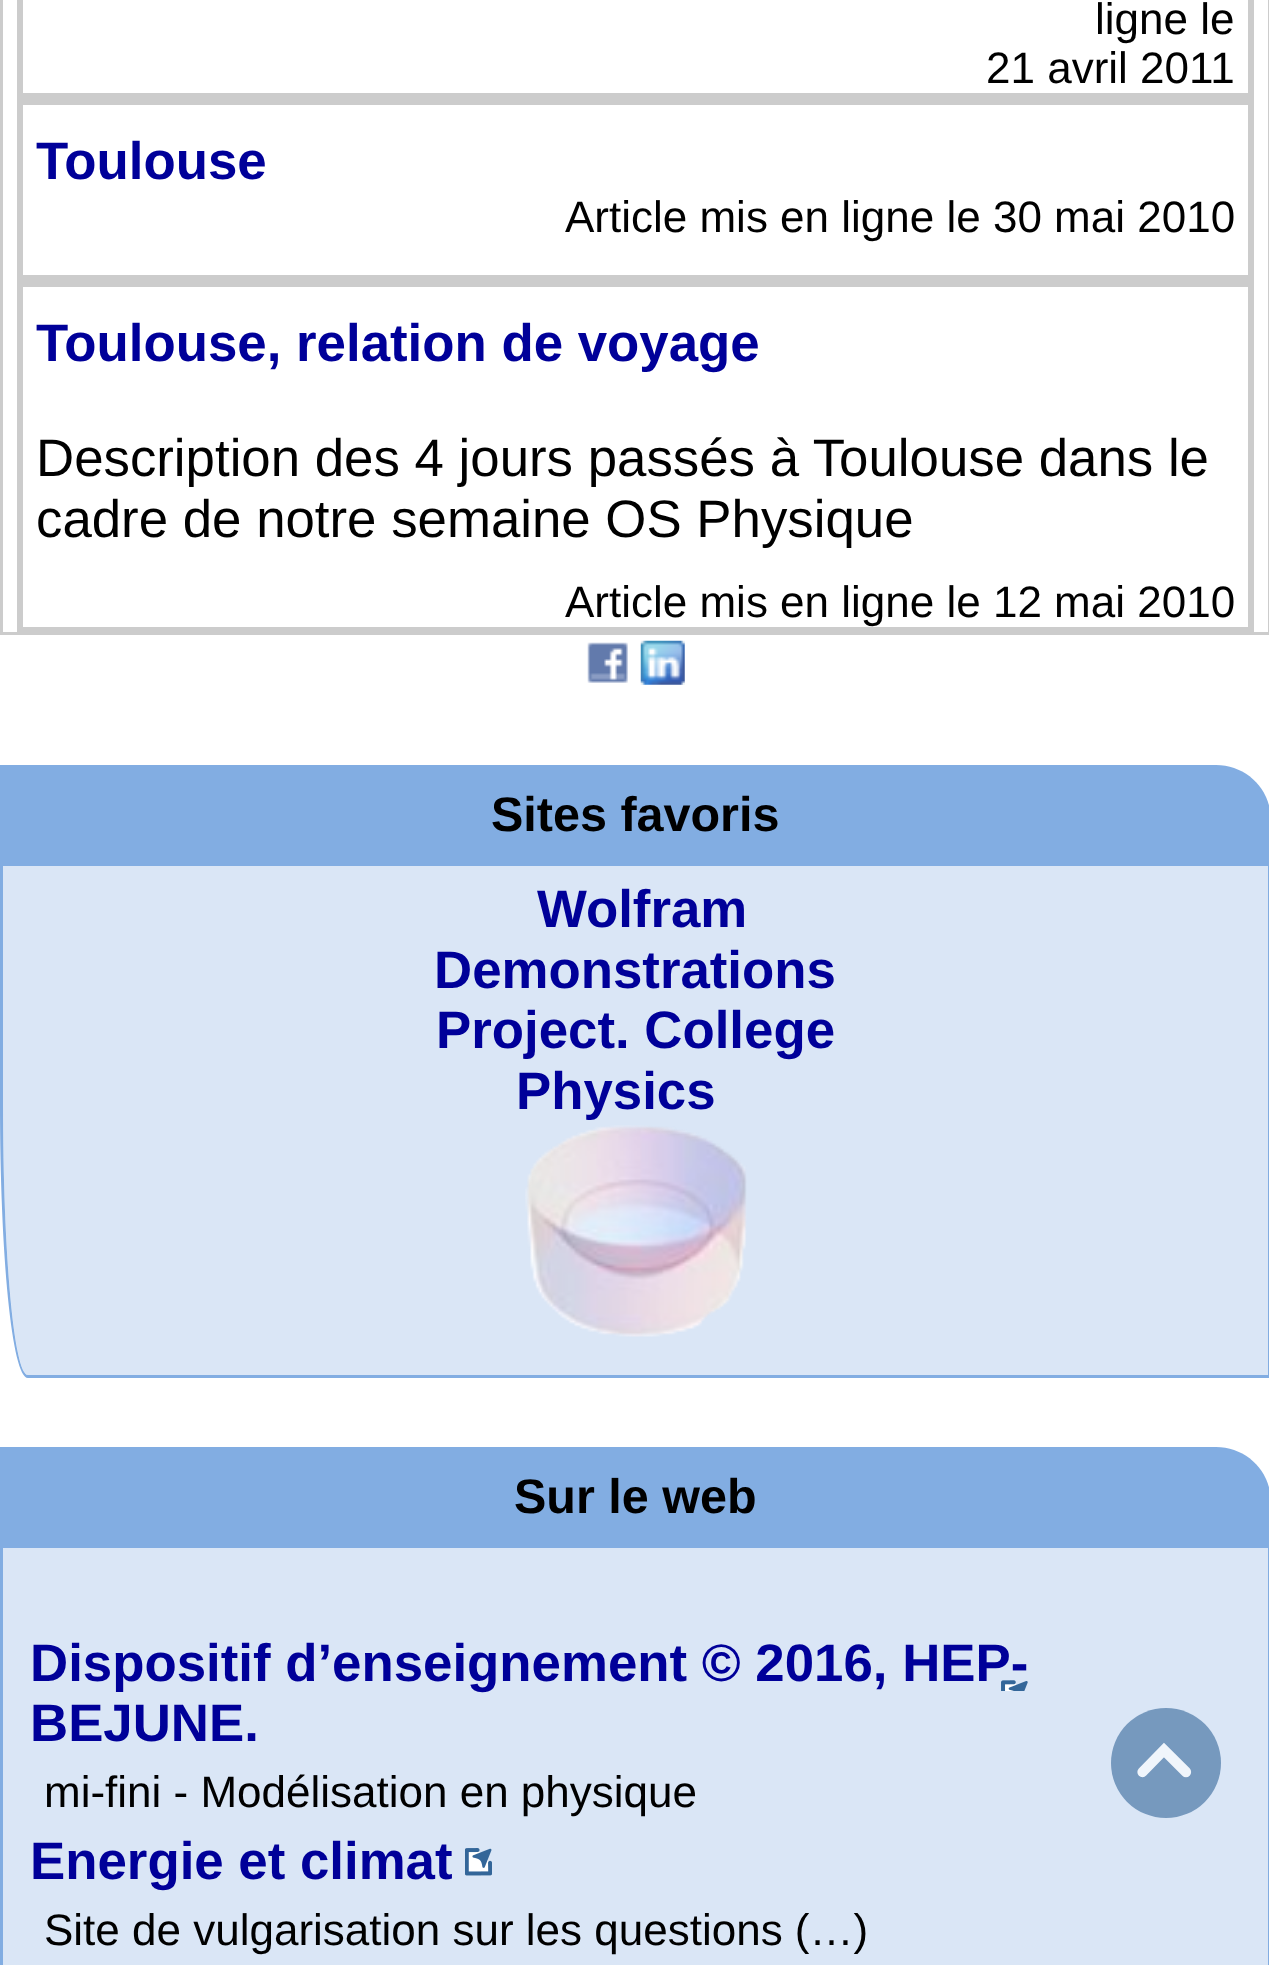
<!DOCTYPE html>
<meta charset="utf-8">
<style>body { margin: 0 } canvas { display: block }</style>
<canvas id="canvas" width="1269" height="1965"></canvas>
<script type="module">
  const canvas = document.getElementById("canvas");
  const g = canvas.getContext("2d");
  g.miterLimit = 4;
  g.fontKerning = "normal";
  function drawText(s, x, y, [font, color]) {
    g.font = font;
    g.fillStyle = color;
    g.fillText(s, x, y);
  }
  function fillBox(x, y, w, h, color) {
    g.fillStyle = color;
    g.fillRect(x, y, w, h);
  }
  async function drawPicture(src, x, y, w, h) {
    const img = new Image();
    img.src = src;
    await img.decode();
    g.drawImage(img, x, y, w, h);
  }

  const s1 = ["44px Liberation Sans", "#000000"];
  const s2 = ["bold 52.8px Liberation Sans", "#000099"];
  const s3 = ["52.8px Liberation Sans", "#000000"];
  const s4 = ["bold 48.5px Liberation Sans", "#000000"];

  fillBox(0, 0, 1269, 1965, "#FFFFFF");
  g.strokeStyle = "#CCCCCC";
  g.lineWidth = 3;
  g.strokeRect(1.5, -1.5, 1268, 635);
  g.lineWidth = 6;
  g.strokeRect(20, -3, 1231, 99);
  drawText("ligne le", 1095, 34, s1);
  drawText("21 avril 2011", 986, 83, s1);
  g.strokeRect(20, 102, 1231, 176);
  drawText("Toulouse", 36, 179, s2);
  drawText("Article mis en ligne le 30 mai 2010", 565, 232, s1);
  g.strokeRect(20, 284, 1231, 346);
  drawText("Toulouse, relation de voyage", 36, 361, s2);
  drawText("Description des 4 jours passés à Toulouse dans le", 36, 476, s3);
  drawText("cadre de notre semaine OS Physique", 36, 537, s3);
  drawText("Article mis en ligne le 12 mai 2010", 565, 617, s1);
  await drawPicture("pic1.png", 587, 642, 41, 41);
  await drawPicture("pic2.png", 640, 640, 45, 45);
  g.fillStyle = "#82ADE2";
  g.beginPath();
  g.moveTo(0, 765);
  g.lineTo(1216, 765);
  g.bezierCurveTo(1246.5, 765, 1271, 789.5, 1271, 820);
  g.lineTo(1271, 866);
  g.lineTo(0, 866);
  g.closePath();
  g.fill();
  drawText("Sites favoris", 491, 831, s4);
  g.fillStyle = "#DAE6F6";
  g.beginPath();
  g.moveTo(3, 866);
  g.lineTo(1268, 866);
  g.lineTo(1268, 1375);
  g.lineTo(28, 1375);
  g.bezierCurveTo(14, 1375, 3, 1253, 3, 1103);
  g.closePath();
  g.fill();
  g.fillStyle = "#82ADE2";
  g.beginPath();
  g.moveTo(0, 866);
  g.lineTo(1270, 866);
  g.lineTo(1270, 1378);
  g.lineTo(28, 1378);
  g.bezierCurveTo(12, 1378, 0, 1255, 0, 1103);
  g.closePath();
  g.moveTo(3, 866);
  g.lineTo(1268, 866);
  g.lineTo(1268, 1375);
  g.lineTo(28, 1375);
  g.bezierCurveTo(14, 1375, 3, 1253, 3, 1103);
  g.closePath();
  g.fill("evenodd");
  drawText("Wolfram", 537, 927, s2);
  drawText("Demonstrations", 434, 988, s2);
  drawText("Project. College", 436, 1048, s2);
  drawText("Physics", 516, 1109, s2);
  await drawPicture("pic3.png", 525, 1125, 222, 212);
  g.fillStyle = "#82ADE2";
  g.beginPath();
  g.moveTo(0, 1447);
  g.lineTo(1216, 1447);
  g.bezierCurveTo(1246.5, 1447, 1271, 1471.5, 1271, 1502);
  g.lineTo(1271, 1548);
  g.lineTo(0, 1548);
  g.closePath();
  g.fill();
  drawText("Sur le web", 514, 1513, s4);
  g.fillStyle = "#DAE6F6";
  g.beginPath();
  g.moveTo(3, 1548);
  g.lineTo(1268, 1548);
  g.lineTo(1268, 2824);
  g.lineTo(28, 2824);
  g.bezierCurveTo(14, 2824, 3, 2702, 3, 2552);
  g.closePath();
  g.fill();
  g.fillStyle = "#82ADE2";
  g.beginPath();
  g.moveTo(0, 1548);
  g.lineTo(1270, 1548);
  g.lineTo(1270, 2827);
  g.lineTo(28, 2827);
  g.bezierCurveTo(12, 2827, 0, 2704, 0, 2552);
  g.closePath();
  g.moveTo(3, 1548);
  g.lineTo(1268, 1548);
  g.lineTo(1268, 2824);
  g.lineTo(28, 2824);
  g.bezierCurveTo(14, 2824, 3, 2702, 3, 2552);
  g.closePath();
  g.fill("evenodd");
  await drawPicture("pic4.png", 1001, 1680, 27, 11);
  drawText("Dispositif d’enseignement © 2016, HEP-", 30, 1681, s2);
  drawText("BEJUNE.", 30, 1741, s2);
  drawText("mi-fini - Modélisation en physique", 44, 1807, s1);
  drawText("Energie et climat", 30, 1879, s2);
  await drawPicture("pic5.png", 465, 1848, 27, 28);
  drawText("Site de vulgarisation sur les questions (…)", 44, 1945, s1);
  g.fillStyle = "#7699BE";
  g.beginPath();
  g.arc(1166, 1763, 55, 0, Math.PI * 2);
  g.fill();
  g.beginPath();
  g.moveTo(1142.5, 1772);
  g.lineTo(1164, 1750);
  g.lineTo(1186, 1772);
  g.strokeStyle = "#F0F5FB";
  g.lineWidth = 10.3;
  g.lineCap = "round";
  g.stroke();
</script>
